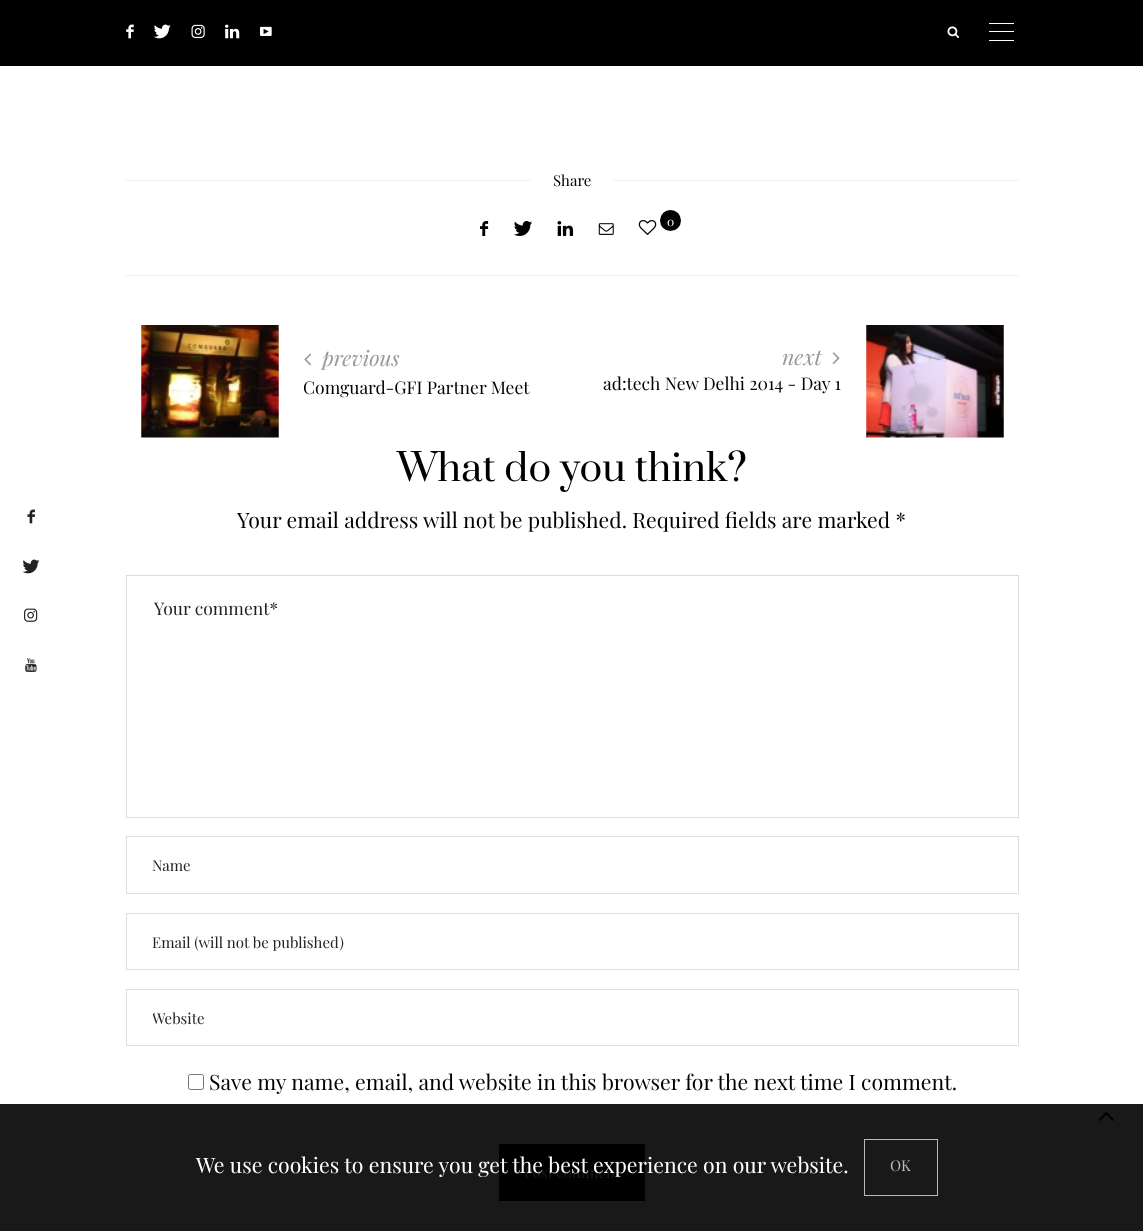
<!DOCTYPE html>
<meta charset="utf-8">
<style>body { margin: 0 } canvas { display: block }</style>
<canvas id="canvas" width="1143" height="1231"></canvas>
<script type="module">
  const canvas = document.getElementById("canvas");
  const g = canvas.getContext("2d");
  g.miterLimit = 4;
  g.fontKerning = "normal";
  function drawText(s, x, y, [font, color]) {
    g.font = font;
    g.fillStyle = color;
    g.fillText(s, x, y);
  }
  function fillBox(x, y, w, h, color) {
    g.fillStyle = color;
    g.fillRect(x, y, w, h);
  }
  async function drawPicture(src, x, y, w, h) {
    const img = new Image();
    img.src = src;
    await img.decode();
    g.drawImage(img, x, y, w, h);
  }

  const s1 = ["15px Playfair Display", "#000000"];
  const s2 = ["12px Playfair Display", "#FFFFFF"];
  const s3 = ["italic 21.25px Playfair Display", "#999999"];
  const s4 = ["17.5px Playfair Display", "#000000"];
  const s5 = ["37.5px Prata", "#000000"];
  const s6 = ["21.25px Playfair Display", "#000000"];
  const s7 = ["17.5px Playfair Display", "#222222"];
  const s8 = ["15px Playfair Display", "#222222"];
  const s9 = ["15px Playfair Display", "#191919"];
  const s10 = ["21.25px Playfair Display", "#FFFFFF"];
  const s11 = ["15px Playfair Display", "#BABABA"];

  fillBox(0, 0, 1143, 1231, "#FFFFFF");
  fillBox(0, 1104, 1143, 127, "#191919");
  fillBox(0, 0, 1143, 66, "#000000");
  await drawPicture("pic1.png", 126, 24, 8, 15);
  await drawPicture("pic2.png", 154, 24, 17, 15);
  await drawPicture("pic3.png", 191, 24, 14, 15);
  await drawPicture("pic4.png", 225, 24, 15, 15);
  await drawPicture("pic5.png", 260, 26, 12, 10);
  await drawPicture("pic6.png", 947, 26, 13, 12);
  fillBox(989, 31, 25, 1, "#FFFFFF");
  fillBox(989, 23, 25, 1, "#FFFFFF");
  fillBox(989, 40, 25, 1, "#FFFFFF");
  await drawPicture("pic7.png", 27, 509, 8, 15);
  await drawPicture("pic8.png", 22, 559, 18, 15);
  await drawPicture("pic9.png", 24, 608, 14, 14);
  await drawPicture("pic10.png", 25, 658, 12, 14);
  fillBox(126, 275, 893, 1, "#EEEEEE");
  fillBox(126, 180, 404, 1, "#EEEEEE");
  drawText("Share", 553, 186, s1);
  fillBox(614, 180, 405, 1, "#EEEEEE");
  await drawPicture("pic11.png", 480, 221, 9, 15);
  await drawPicture("pic12.png", 514, 221, 18, 15);
  await drawPicture("pic13.png", 557, 221, 17, 15);
  await drawPicture("pic14.png", 598, 223, 16, 12);
  await drawPicture("pic15.png", 638, 220, 19, 15);
  g.fillStyle = "#000000";
  g.beginPath();
  g.arc(670.5, 220.5, 10.5, 0, Math.PI * 2);
  g.fill();
  drawText("0", 667, 226, s2);
  await drawPicture("pic16.png", 141, 325, 138, 113);
  await drawPicture("pic17.png", 304, 353, 8, 13);
  drawText("previous", 322, 366, s3);
  drawText("Comguard-GFI Partner Meet", 303, 394, s4);
  drawText("next", 782, 365, s3);
  await drawPicture("pic18.png", 832, 352, 8, 12);
  drawText("ad:tech New Delhi 2014 - Day 1", 603, 390, s4);
  await drawPicture("pic19.png", 866, 325, 138, 113);
  drawText("What do you think?", 397, 481, s5);
  drawText("Your email address will not be published. Required fields are marked *", 237, 528, s6);
  g.strokeStyle = "#DDDDDD";
  g.strokeRect(126.5, 575.5, 892, 242);
  drawText("Your comment*", 154, 615, s7);
  g.strokeRect(126.5, 836.5, 892, 57);
  drawText("Name", 152, 871, s8);
  g.strokeRect(126.5, 913.5, 892, 56);
  drawText("Email (will not be published)", 152, 948, s8);
  g.strokeRect(126.5, 989.5, 892, 56);
  g.save();
  g.beginPath();
  g.rect(153, 1008, 840, 20);
  g.clip();
  drawText("Website", 152, 1024, s8);
  g.restore();
  g.beginPath();
  g.roundRect(188.5, 1074.5, 15, 15, 2);
  g.strokeStyle = "#767676";
  g.stroke();
  drawText("Save my name, email, and website in this browser for the next time I comment.", 209, 1090, s6);
  fillBox(499, 1144, 146, 57, "#000000");
  drawText("Post comment", 524, 1178, s9);
  await drawPicture("pic20.png", 1098, 1112, 16, 9);
  drawText("We use cookies to ensure you get the best experience on our website.", 196, 1173, s10);
  g.strokeStyle = "#BABABA";
  g.strokeRect(864.5, 1139.5, 73, 56);
  drawText("OK", 890, 1171, s11);
</script>
